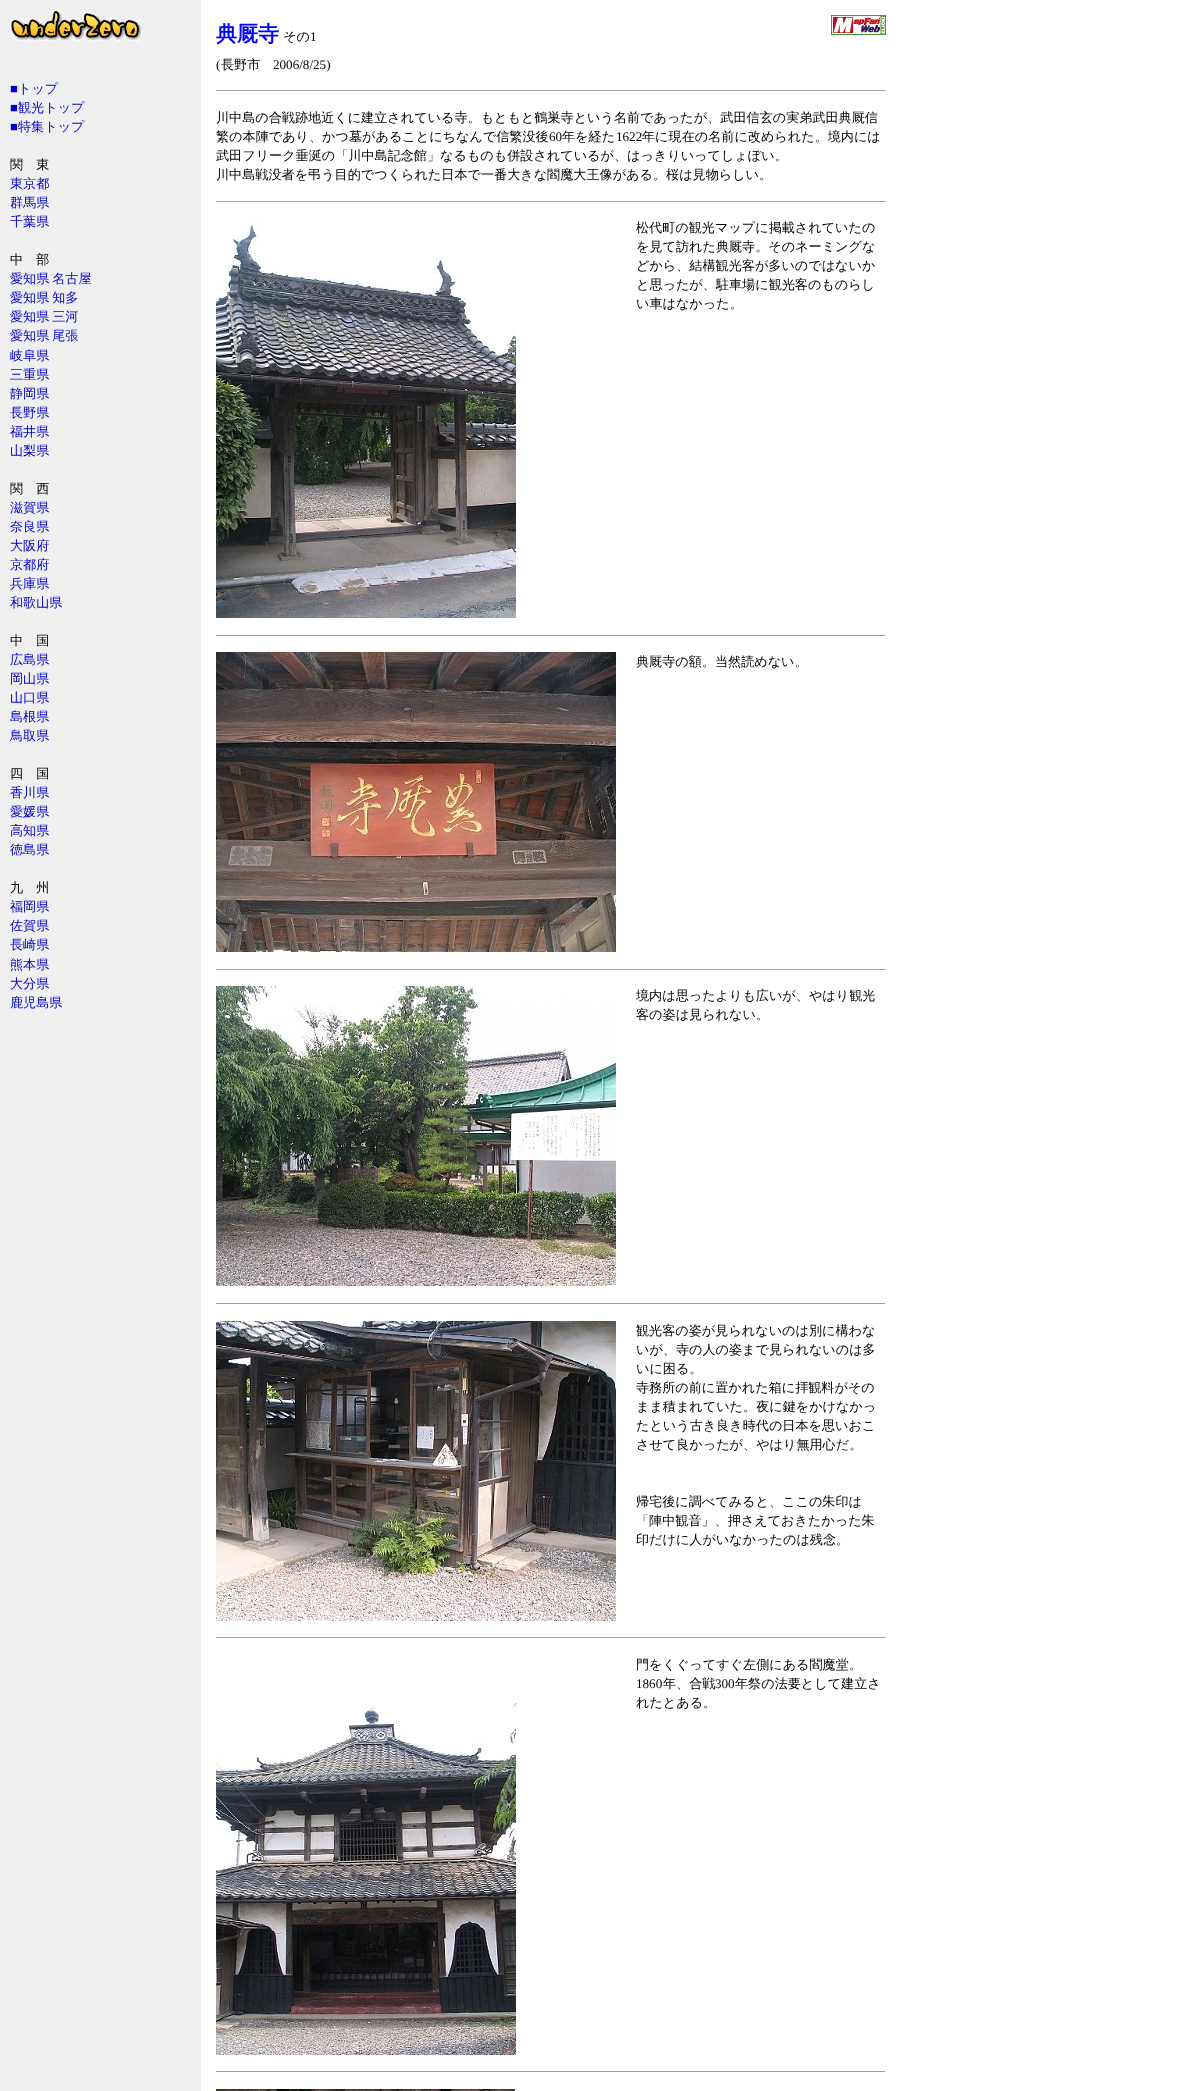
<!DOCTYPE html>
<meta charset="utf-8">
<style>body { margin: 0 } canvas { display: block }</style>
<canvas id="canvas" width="1185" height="2091"></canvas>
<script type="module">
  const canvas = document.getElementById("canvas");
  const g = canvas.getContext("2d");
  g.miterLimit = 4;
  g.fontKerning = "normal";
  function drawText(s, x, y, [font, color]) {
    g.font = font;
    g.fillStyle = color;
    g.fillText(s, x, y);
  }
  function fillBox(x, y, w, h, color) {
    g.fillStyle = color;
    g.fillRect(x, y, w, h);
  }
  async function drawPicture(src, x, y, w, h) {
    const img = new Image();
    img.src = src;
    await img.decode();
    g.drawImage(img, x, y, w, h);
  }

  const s1 = ["13.12px Liberation Serif", "#0000CC"];
  const s2 = ["500 13.12px WenQuanYi Zen Hei", "#0000CC"];
  const s3 = ["500 13.12px WenQuanYi Zen Hei", "#000000"];
  const s4 = ["bold 21px WenQuanYi Zen Hei", "#0000FF"];
  const s5 = ["13.12px Liberation Serif", "#000000"];

  fillBox(0, 0, 1185, 2091, "#FFFFFF");
  fillBox(0, 0, 201, 2091, "#EFEFEF");
  await drawPicture("pic1.png", 10, 10, 132, 31);
  drawText("■", 10, 93, s1);
  drawText("トップ", 18, 93, s2);
  drawText("■", 10, 112, s1);
  drawText("観光トップ", 18, 112, s2);
  drawText("■", 10, 131, s1);
  drawText("特集トップ", 18, 131, s2);
  drawText("関　東", 10, 169, s3);
  drawText("東京都", 10, 188, s2);
  drawText("群馬県", 10, 207, s2);
  drawText("千葉県", 10, 226, s2);
  drawText("中　部", 10, 264, s3);
  g.wordSpacing = "-1px";
  drawText("愛知県 名古屋", 10, 283, s2);
  drawText("愛知県 知多", 10, 302, s2);
  drawText("愛知県 三河", 10, 321, s2);
  drawText("愛知県 尾張", 10, 340, s2);
  g.wordSpacing = "0px";
  drawText("岐阜県", 10, 360, s2);
  drawText("三重県", 10, 379, s2);
  drawText("静岡県", 10, 398, s2);
  drawText("長野県", 10, 417, s2);
  drawText("福井県", 10, 436, s2);
  drawText("山梨県", 10, 455, s2);
  drawText("関　西", 10, 493, s3);
  drawText("滋賀県", 10, 512, s2);
  drawText("奈良県", 10, 531, s2);
  drawText("大阪府", 10, 550, s2);
  drawText("京都府", 10, 569, s2);
  drawText("兵庫県", 10, 588, s2);
  drawText("和歌山県", 10, 607, s2);
  drawText("中　国", 10, 645, s3);
  drawText("広島県", 10, 664, s2);
  drawText("岡山県", 10, 683, s2);
  drawText("山口県", 10, 702, s2);
  drawText("島根県", 10, 721, s2);
  drawText("鳥取県", 10, 740, s2);
  drawText("四　国", 10, 778, s3);
  drawText("香川県", 10, 797, s2);
  drawText("愛媛県", 10, 816, s2);
  drawText("高知県", 10, 835, s2);
  drawText("徳島県", 10, 854, s2);
  drawText("九　州", 10, 892, s3);
  drawText("福岡県", 10, 911, s2);
  drawText("佐賀県", 10, 930, s2);
  drawText("長崎県", 10, 949, s2);
  drawText("熊本県", 10, 969, s2);
  drawText("大分県", 10, 988, s2);
  drawText("鹿児島県", 10, 1007, s2);
  drawText("典厩寺", 216, 41, s4);
  drawText("その", 283, 41, s3);
  drawText("1", 310, 41, s5);
  await drawPicture("pic2.png", 831, 15, 55, 20);
  drawText("(", 216, 69, s5);
  drawText("長野市", 221, 69, s3);
  drawText("2006/8/25)", 273, 69, s5);
  fillBox(216, 90, 670, 1, "#9F9F9F");
  fillBox(885, 90, 1, 1, "#EEEEEE");
  drawText("川中島の合戦跡地近くに建立されている寺。もともと鶴巣寺という名前であったが、武田信玄の実弟武田典厩信", 216, 122, s3);
  drawText("繁の本陣であり、かつ墓があることにちなんで信繁没後", 216, 141, s3);
  drawText("60", 549, 141, s5);
  drawText("年を経た", 562, 141, s3);
  drawText("1622", 616, 141, s5);
  drawText("年に現在の名前に改められた。境内には", 642, 141, s3);
  drawText("武田フリーク垂涎の「川中島記念館」なるものも併設されているが、はっきりいってしょぼい。", 216, 160, s3);
  drawText("川中島戦没者を弔う目的でつくられた日本で一番大きな閻魔大王像がある。桜は見物らしい。", 216, 179, s3);
  fillBox(216, 201, 670, 1, "#9F9F9F");
  fillBox(885, 201, 1, 1, "#EEEEEE");
  await drawPicture("pic3.png", 216, 218, 300, 400);
  drawText("松代町の観光マップに掲載されていたの", 636, 232, s3);
  drawText("を見て訪れた典厩寺。そのネーミングな", 636, 251, s3);
  drawText("どから、結構観光客が多いのではないか", 636, 270, s3);
  drawText("と思ったが、駐車場に観光客のものらし", 636, 289, s3);
  drawText("い車はなかった。", 636, 308, s3);
  fillBox(216, 635, 670, 1, "#9F9F9F");
  fillBox(885, 635, 1, 1, "#EEEEEE");
  await drawPicture("pic4.png", 216, 652, 400, 300);
  drawText("典厩寺の額。当然読めない。", 636, 666, s3);
  fillBox(216, 969, 670, 1, "#9F9F9F");
  fillBox(885, 969, 1, 1, "#EEEEEE");
  await drawPicture("pic5.png", 216, 986, 400, 300);
  drawText("境内は思ったよりも広いが、やはり観光", 636, 1000, s3);
  drawText("客の姿は見られない。", 636, 1019, s3);
  fillBox(216, 1303, 670, 1, "#9F9F9F");
  fillBox(885, 1303, 1, 1, "#EEEEEE");
  await drawPicture("pic6.png", 216, 1321, 400, 300);
  drawText("観光客の姿が見られないのは別に構わな", 636, 1335, s3);
  drawText("いが、寺の人の姿まで見られないのは多", 636, 1354, s3);
  drawText("いに困る。", 636, 1373, s3);
  drawText("寺務所の前に置かれた箱に拝観料がその", 636, 1392, s3);
  drawText("まま積まれていた。夜に鍵をかけなかっ", 636, 1411, s3);
  drawText("たという古き良き時代の日本を思いおこ", 636, 1430, s3);
  drawText("させて良かったが、やはり無用心だ。", 636, 1449, s3);
  drawText("帰宅後に調べてみると、ここの朱印は", 636, 1506, s3);
  drawText("「陣中観音」、押さえておきたかった朱", 636, 1525, s3);
  drawText("印だけに人がいなかったのは残念。", 636, 1544, s3);
  fillBox(216, 1637, 670, 1, "#9F9F9F");
  fillBox(885, 1637, 1, 1, "#EEEEEE");
  drawText("門をくぐってすぐ左側にある閻魔堂。", 636, 1669, s3);
  drawText("1860", 636, 1688, s5);
  drawText("年、合戦", 663, 1688, s3);
  drawText("300", 715, 1688, s5);
  drawText("年祭の法要として建立さ", 735, 1688, s3);
  drawText("れたとある。", 636, 1707, s3);
  await drawPicture("pic7.png", 216, 1703, 300, 352);
  fillBox(216, 2071, 670, 1, "#9F9F9F");
  fillBox(885, 2071, 1, 1, "#EEEEEE");
  await drawPicture("pic8.png", 216, 2089, 299, 2);
</script>
